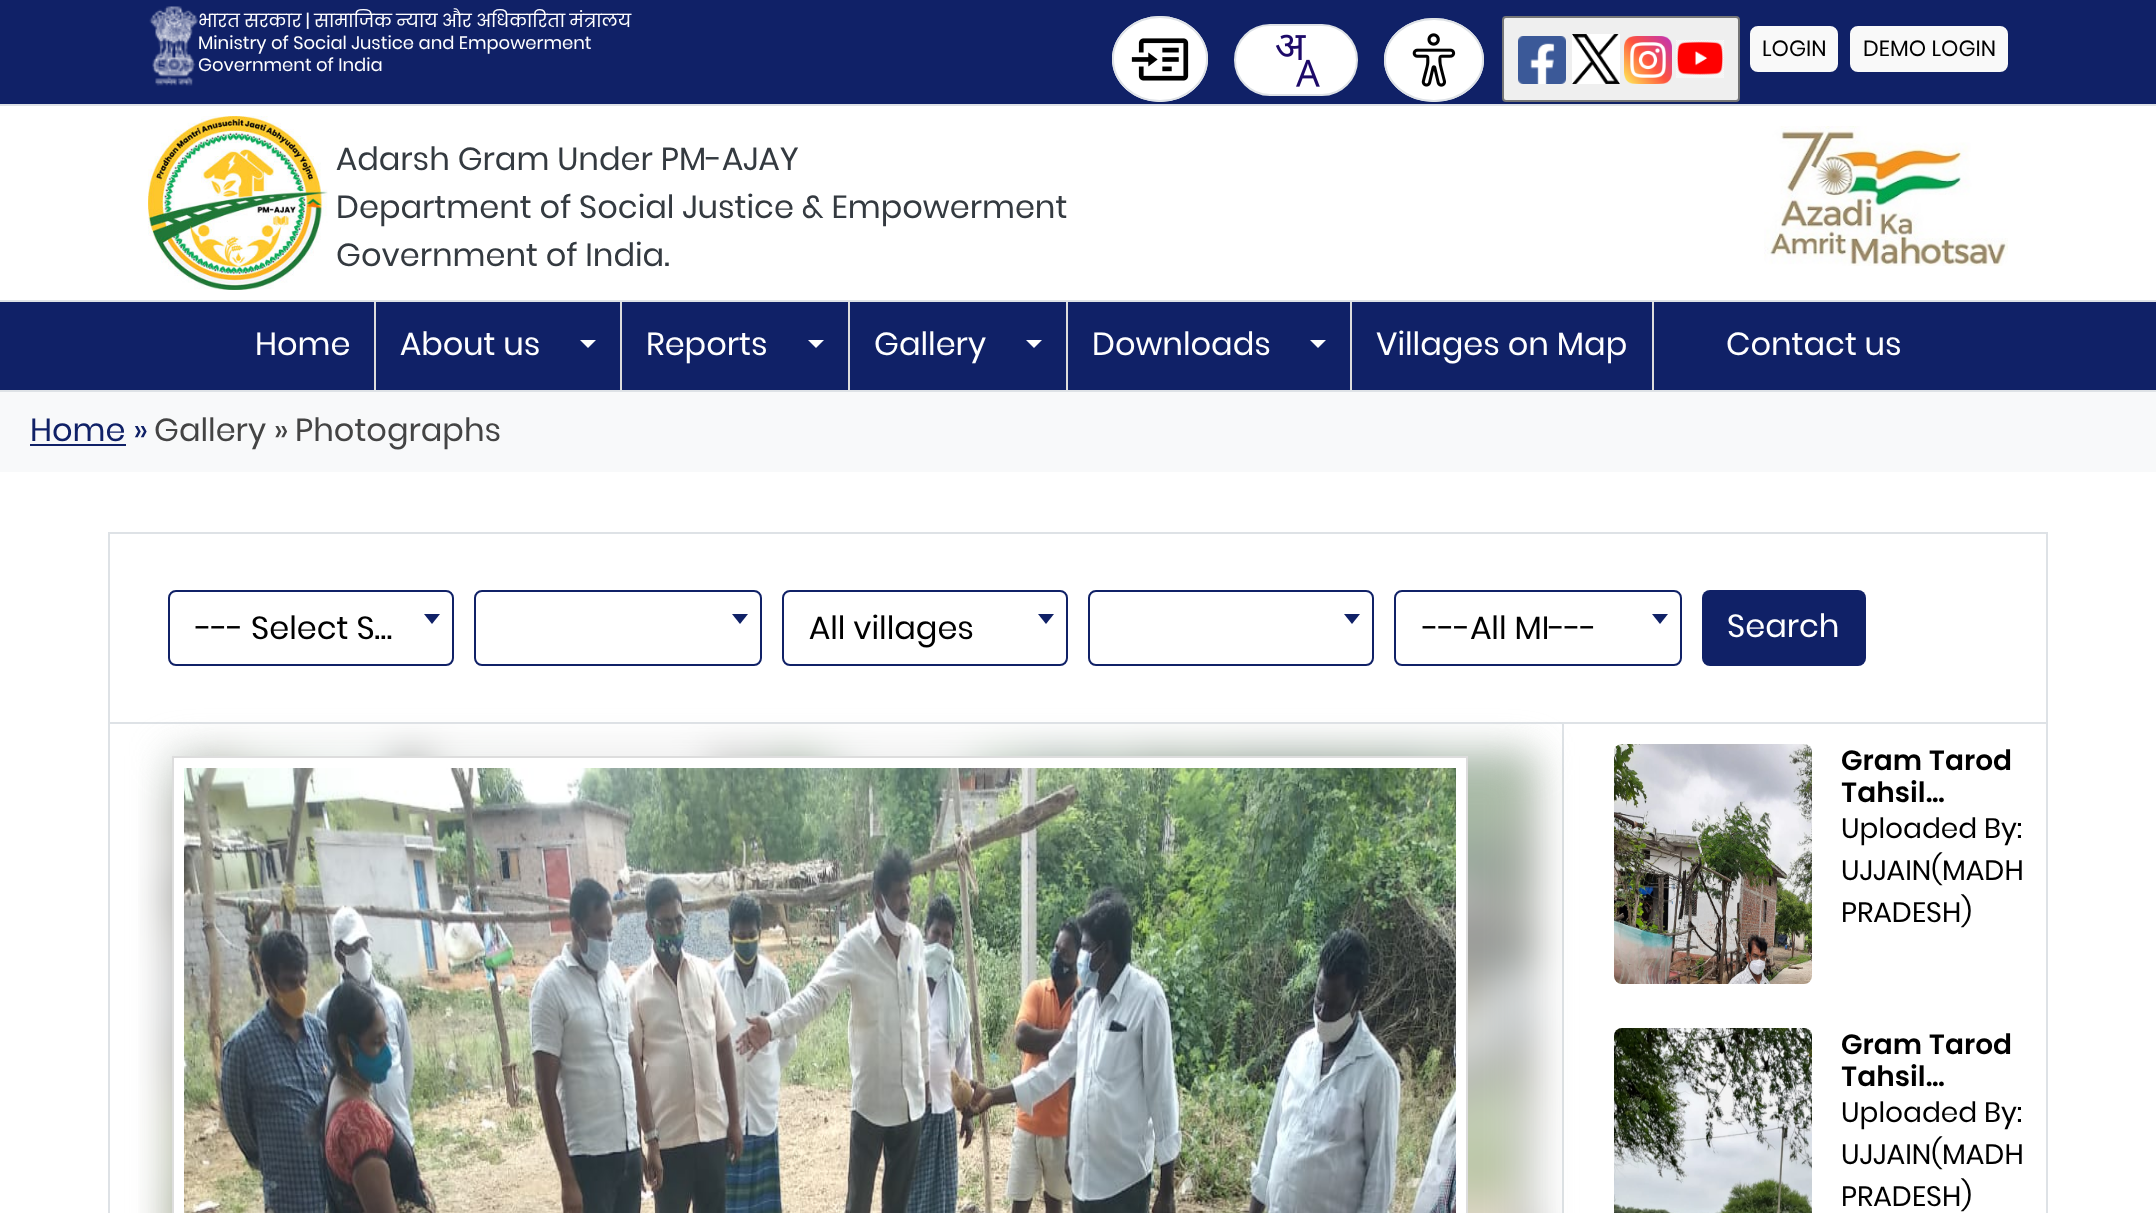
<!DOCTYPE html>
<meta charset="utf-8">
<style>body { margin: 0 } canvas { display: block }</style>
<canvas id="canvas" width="2156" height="1213"></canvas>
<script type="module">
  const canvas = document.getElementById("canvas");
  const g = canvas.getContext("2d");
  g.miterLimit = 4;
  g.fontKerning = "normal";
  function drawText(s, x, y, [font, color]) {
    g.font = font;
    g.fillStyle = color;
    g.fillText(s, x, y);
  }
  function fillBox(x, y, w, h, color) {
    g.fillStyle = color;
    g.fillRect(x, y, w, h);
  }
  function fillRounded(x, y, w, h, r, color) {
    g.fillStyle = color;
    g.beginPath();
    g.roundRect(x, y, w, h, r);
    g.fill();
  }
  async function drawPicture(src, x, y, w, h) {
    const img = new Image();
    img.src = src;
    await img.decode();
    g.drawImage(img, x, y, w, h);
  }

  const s1 = ["18px Poppins", "#FFFFFF"];
  const s2 = ["22px Poppins", "#000000"];
  const s3 = ["32px Poppins", "#343A40"];
  const s4 = ["32px Poppins", "#FFFFFF"];
  const s5 = ["32px Poppins", "#102167"];
  const s6 = ["32px Poppins", "#444444"];
  const s7 = ["32px Poppins", "#000000"];
  const s8 = ["600 28px Poppins", "#000000"];
  const s9 = ["28px Poppins", "#000000"];

  fillBox(0, 0, 2156, 1213, "#FFFFFF");
  fillBox(0, 0, 2156, 104, "#102167");
  fillBox(0, 104, 2156, 2, "#DEE2E6");
  drawText("भारत सरकार | सामाजिक न्याय और अधिकारिता मंत्रालय", 198, 27, s1);
  await drawPicture("pic1.png", 149, 6, 49, 80);
  drawText("Ministry of Social Justice and Empowerment", 198, 49, s1);
  drawText("Government of India", 198, 71, s1);
  g.beginPath();
  g.ellipse(1160, 59, 48, 43, 0, 0, Math.PI * 2);
  g.fill();
  g.beginPath();
  g.moveTo(1160, 17);
  g.bezierCurveTo(1186, 17, 1207, 36, 1207, 59);
  g.bezierCurveTo(1207, 82, 1186, 101, 1160, 101);
  g.bezierCurveTo(1134, 101, 1113, 82, 1113, 59);
  g.bezierCurveTo(1113, 36, 1134, 17, 1160, 17);
  g.closePath();
  g.strokeStyle = "#DEE2E6";
  g.lineWidth = 2;
  g.stroke();
  await drawPicture("pic2.png", 1131, 38, 58, 43);
  g.beginPath();
  g.roundRect(1235, 25, 122, 70, 35);
  g.fill();
  g.stroke();
  await drawPicture("pic3.png", 1275, 34, 45, 53);
  g.beginPath();
  g.ellipse(1434, 60, 50, 42, 0, 0, Math.PI * 2);
  g.fill();
  g.beginPath();
  g.moveTo(1434, 19);
  g.bezierCurveTo(1461, 19, 1483, 37.5, 1483, 60);
  g.bezierCurveTo(1483, 82.5, 1461, 101, 1434, 101);
  g.bezierCurveTo(1407, 101, 1385, 82.5, 1385, 60);
  g.bezierCurveTo(1385, 37.5, 1407, 19, 1434, 19);
  g.closePath();
  g.stroke();
  await drawPicture("pic4.png", 1412, 33, 44, 54);
  g.fillStyle = "#EFEFEF";
  g.beginPath();
  g.roundRect(1503, 17, 236, 84, 3);
  g.fill();
  g.strokeStyle = "#767676";
  g.stroke();
  await drawPicture("pic5.png", 1518, 36, 48, 48);
  await drawPicture("pic6.png", 1572, 34, 48, 50);
  await drawPicture("pic7.png", 1624, 36, 48, 48);
  await drawPicture("pic8.png", 1676, 40, 48, 38);
  g.fillStyle = "#F9F9F9";
  g.beginPath();
  g.roundRect(1751, 27, 86, 44, 7);
  g.fill();
  g.strokeStyle = "#F9F9F9";
  g.stroke();
  drawText("LOGIN", 1762, 56, s2);
  g.fillStyle = "#F9F9F9";
  g.beginPath();
  g.roundRect(1851, 27, 156, 44, 7);
  g.fill();
  g.stroke();
  drawText("DEMO LOGIN", 1863, 56, s2);
  fillBox(0, 300, 2156, 2, "#DEE2E6");
  await drawPicture("pic9.png", 148, 116, 180, 174);
  drawText("Adarsh Gram Under PM-AJAY", 336, 170, s3);
  drawText("Department of Social Justice & Empowerment", 336, 218, s3);
  drawText("Government of India.", 336, 266, s3);
  await drawPicture("pic10.png", 1764, 126, 244, 140);
  fillBox(0, 302, 2156, 88, "#102167");
  fillBox(0, 390, 2156, 2, "#DEE2E6");
  fillBox(374, 302, 2, 88, "#DDDDDD");
  drawText("Home", 255, 355, s4);
  fillBox(620, 302, 2, 88, "#DDDDDD");
  drawText("About us", 400, 355, s4);
  g.beginPath();
  g.moveTo(580, 340);
  g.lineTo(596, 340);
  g.lineTo(588, 348);
  g.closePath();
  g.fill();
  fillBox(848, 302, 2, 88, "#DDDDDD");
  drawText("Reports", 646, 355, s4);
  g.beginPath();
  g.moveTo(808, 340);
  g.lineTo(824, 340);
  g.lineTo(816, 348);
  g.closePath();
  g.fill();
  fillBox(1066, 302, 2, 88, "#DDDDDD");
  drawText("Gallery", 874, 355, s4);
  g.beginPath();
  g.moveTo(1026, 340);
  g.lineTo(1042, 340);
  g.lineTo(1034, 348);
  g.closePath();
  g.fill();
  fillBox(1350, 302, 2, 88, "#DDDDDD");
  drawText("Downloads", 1092, 355, s4);
  g.beginPath();
  g.moveTo(1310, 340);
  g.lineTo(1326, 340);
  g.lineTo(1318, 348);
  g.closePath();
  g.fill();
  fillBox(1652, 302, 2, 88, "#DDDDDD");
  drawText("Villages on Map", 1376, 355, s4);
  drawText("Contact us", 1726, 355, s4);
  fillBox(0, 392, 2156, 80, "#F8F9FA");
  drawText("Home »", 30, 441, s5);
  fillBox(30, 444, 96, 2, "#102167");
  drawText("Gallery »", 154, 441, s6);
  drawText("Photographs", 295, 441, s6);
  g.strokeStyle = "#DEE2E6";
  g.strokeRect(109, 533, 1938, 190);
  g.beginPath();
  g.roundRect(169, 591, 284, 74, 7);
  g.strokeStyle = "#102167";
  g.stroke();
  drawText("--- Select S…", 196, 639, s7);
  g.fillStyle = "#102167";
  g.beginPath();
  g.moveTo(424, 614);
  g.lineTo(440, 614);
  g.lineTo(432, 624);
  g.closePath();
  g.fill();
  g.beginPath();
  g.roundRect(475, 591, 286, 74, 7);
  g.stroke();
  g.beginPath();
  g.moveTo(732, 614);
  g.lineTo(748, 614);
  g.lineTo(740, 624);
  g.closePath();
  g.fill();
  g.beginPath();
  g.roundRect(783, 591, 284, 74, 7);
  g.stroke();
  drawText("All villages", 809, 639, s7);
  g.fillStyle = "#102167";
  g.beginPath();
  g.moveTo(1038, 614);
  g.lineTo(1054, 614);
  g.lineTo(1046, 624);
  g.closePath();
  g.fill();
  g.beginPath();
  g.roundRect(1089, 591, 284, 74, 7);
  g.stroke();
  g.beginPath();
  g.moveTo(1344, 614);
  g.lineTo(1360, 614);
  g.lineTo(1352, 624);
  g.closePath();
  g.fill();
  g.beginPath();
  g.roundRect(1395, 591, 286, 74, 7);
  g.stroke();
  drawText("---All MI---", 1423, 639, s7);
  g.fillStyle = "#102167";
  g.beginPath();
  g.moveTo(1652, 614);
  g.lineTo(1668, 614);
  g.lineTo(1660, 624);
  g.closePath();
  g.fill();
  fillRounded(1702, 590, 164, 76, 8, "#102167");
  drawText("Search", 1727, 637, s4);
  fillBox(1562, 724, 2, 489, "#DEE2E6");
  fillBox(108, 724, 2, 489, "#DEE2E6");
  g.fillStyle = "rgba(204, 204, 204, 0.7)";
  g.filter = "blur(20px)";
  g.beginPath();
  g.rect(172, 756, 1360, 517);
  g.fill();
  g.filter = "none";
  await drawPicture("pic11.png", 138, 724, 1426, 489);
  g.fillStyle = "#FFFFFF";
  g.beginPath();
  g.rect(173, 757, 1294, 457);
  g.fill();
  g.strokeStyle = "#DDDDDD";
  g.stroke();
  await drawPicture("pic12.png", 184, 768, 1272, 445);
  fillBox(2046, 724, 2, 489, "#DEE2E6");
  await drawPicture("pic13.png", 1614, 744, 198, 240);
  drawText("Gram Tarod", 1841, 770, s8);
  drawText("Tahsil…", 1841, 802, s8);
  drawText("Uploaded By:", 1841, 838, s9);
  drawText("UJJAIN(MADH", 1841, 880, s9);
  drawText("PRADESH)", 1841, 922, s9);
  await drawPicture("pic14.png", 1614, 1028, 198, 185);
  drawText("Gram Tarod", 1841, 1054, s8);
  drawText("Tahsil…", 1841, 1086, s8);
  drawText("Uploaded By:", 1841, 1122, s9);
  drawText("UJJAIN(MADH", 1841, 1164, s9);
  drawText("PRADESH)", 1841, 1206, s9);
</script>
